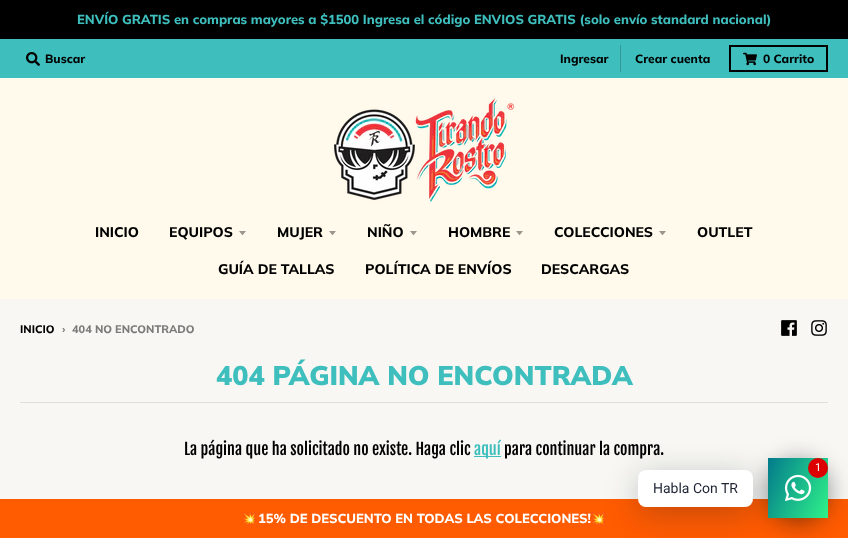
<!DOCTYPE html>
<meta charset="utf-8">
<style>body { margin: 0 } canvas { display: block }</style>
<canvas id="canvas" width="848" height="538"></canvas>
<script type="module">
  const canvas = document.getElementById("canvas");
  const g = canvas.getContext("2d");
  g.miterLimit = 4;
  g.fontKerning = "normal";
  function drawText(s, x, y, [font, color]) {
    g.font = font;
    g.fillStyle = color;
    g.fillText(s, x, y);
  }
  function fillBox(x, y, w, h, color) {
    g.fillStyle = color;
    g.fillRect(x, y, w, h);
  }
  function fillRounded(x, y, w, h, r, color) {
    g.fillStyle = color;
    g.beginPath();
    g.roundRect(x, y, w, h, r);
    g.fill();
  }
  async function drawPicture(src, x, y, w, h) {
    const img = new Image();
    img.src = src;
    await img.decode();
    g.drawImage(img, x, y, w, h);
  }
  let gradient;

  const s1 = ["800 13px Muli", "#3EBFBE"];
  const s2 = ["13px Noto Color Emoji", "#FFFFFF"];
  const s3 = ["800 13px Muli", "#FFFFFF"];
  const s4 = ["800 12px Muli", "#000000"];
  const s5 = ["800 14px Muli", "#000000"];
  const s6 = ["800 11px Muli", "#000000"];
  const s7 = ["800 11px Muli", "#7C7B79"];
  const s8 = ["900 27px Muli", "#3EBFBE"];
  const s9 = ["16px Fjalla One", "#000000"];
  const s10 = ["16px Fjalla One", "#3EBFBE"];
  const s11 = ["11px Roboto", "#FFFFFF"];
  const s12 = ["14px Roboto", "#1E2433"];

  fillBox(0, 0, 848, 538, "#F8F7F3");
  fillBox(0, 0, 848, 39, "#000000");
  drawText("ENVÍO GRATIS en compras mayores a $1500 Ingresa el código ENVIOS GRATIS (solo envío standard nacional)", 77, 24, s1);
  fillBox(0, 499, 848, 39, "#FF5B00");
  drawText("💥", 241, 523, s2);
  drawText("15% DE DESCUENTO EN TODAS LAS COLECCIONES!", 258, 523, s3);
  drawText("💥", 590, 523, s2);
  fillBox(0, 39, 848, 39, "#3EBFBE");
  await drawPicture("pic1.png", 26, 52, 14, 14);
  drawText("Buscar", 45, 63, s4);
  fillBox(620, 45, 1, 27, "#319898");
  drawText("Ingresar", 560, 63, s4);
  drawText("Crear cuenta", 635, 63, s4);
  g.strokeStyle = "#000000";
  g.lineWidth = 2;
  g.strokeRect(730, 46, 97, 25);
  await drawPicture("pic2.png", 743, 52, 14, 14);
  drawText("0 Carrito", 763, 63, s4);
  fillBox(0, 78, 848, 221, "#FFFAEB");
  await drawPicture("pic3.png", 334, 98, 180, 104);
  drawText("INICIO", 95, 237, s5);
  drawText("EQUIPOS", 169, 237, s5);
  g.fillStyle = "#99968D";
  g.beginPath();
  g.moveTo(239, 231);
  g.bezierCurveTo(243.5, 236.5, 241.5, 236.5, 246, 231);
  g.closePath();
  g.fill();
  drawText("MUJER", 277, 237, s5);
  g.fillStyle = "#99968D";
  g.beginPath();
  g.moveTo(329, 231);
  g.bezierCurveTo(333.5, 236.5, 331.5, 236.5, 336, 231);
  g.closePath();
  g.fill();
  drawText("NIÑO", 367, 237, s5);
  g.fillStyle = "#99968D";
  g.beginPath();
  g.moveTo(410, 231);
  g.bezierCurveTo(414.5, 236.5, 412.5, 236.5, 417, 231);
  g.closePath();
  g.fill();
  drawText("HOMBRE", 448, 237, s5);
  g.fillStyle = "#99968D";
  g.beginPath();
  g.moveTo(516, 231);
  g.bezierCurveTo(520.5, 236.5, 518.5, 236.5, 523, 231);
  g.closePath();
  g.fill();
  drawText("COLECCIONES", 554, 237, s5);
  g.fillStyle = "#99968D";
  g.beginPath();
  g.moveTo(659, 231);
  g.bezierCurveTo(663.5, 236.5, 661.5, 236.5, 666, 231);
  g.closePath();
  g.fill();
  drawText("OUTLET", 697, 237, s5);
  drawText("GUÍA DE TALLAS", 218, 274, s5);
  drawText("POLÍTICA DE ENVÍOS", 365, 274, s5);
  drawText("DESCARGAS", 541, 274, s5);
  drawText("INICIO", 20, 333, s6);
  drawText("›", 62, 333, s7);
  drawText("404 NO ENCONTRADO", 72, 333, s7);
  await drawPicture("pic4.png", 781, 320, 16, 16);
  await drawPicture("pic5.png", 811, 320, 16, 16);
  fillBox(20, 402, 808, 1, "#DFDEDA");
  drawText("404 PÁGINA NO ENCONTRADA", 216, 385, s8);
  drawText("La página que ha solicitado no existe. Haga clic", 184, 455, s9);
  fillBox(474, 456, 27, 1, "#3EBFBE");
  drawText("aquí", 474, 455, s10);
  drawText("para continuar la compra.", 504, 455, s9);
  g.fillStyle = "rgba(2, 6, 16, 0.5)";
  g.filter = "blur(12px)";
  g.beginPath();
  g.roundRect(768, 462, 60, 60, 30);
  g.fill();
  g.filter = "none";
  gradient = g.createLinearGradient(762, 471, 834, 505);
  gradient.addColorStop(0, "#047C8D");
  gradient.addColorStop(1, "#2FF289");
  g.fillStyle = gradient;
  g.fillRect(768, 458, 60, 60);
  g.fillStyle = "rgba(0, 18, 46, 0.24)";
  g.filter = "blur(16px)";
  g.beginPath();
  g.roundRect(638, 476, 115, 37, 8);
  g.fill();
  g.filter = "none";
  await drawPicture("pic6.png", 785, 474, 27, 27);
  g.fillStyle = "#DD0000";
  g.beginPath();
  g.arc(818, 468, 10, 0, Math.PI * 2);
  g.fill();
  drawText("1", 815, 471, s11);
  fillRounded(638, 470, 115, 37, 8, "#FFFFFF");
  drawText("Habla Con TR", 653, 493, s12);
</script>
